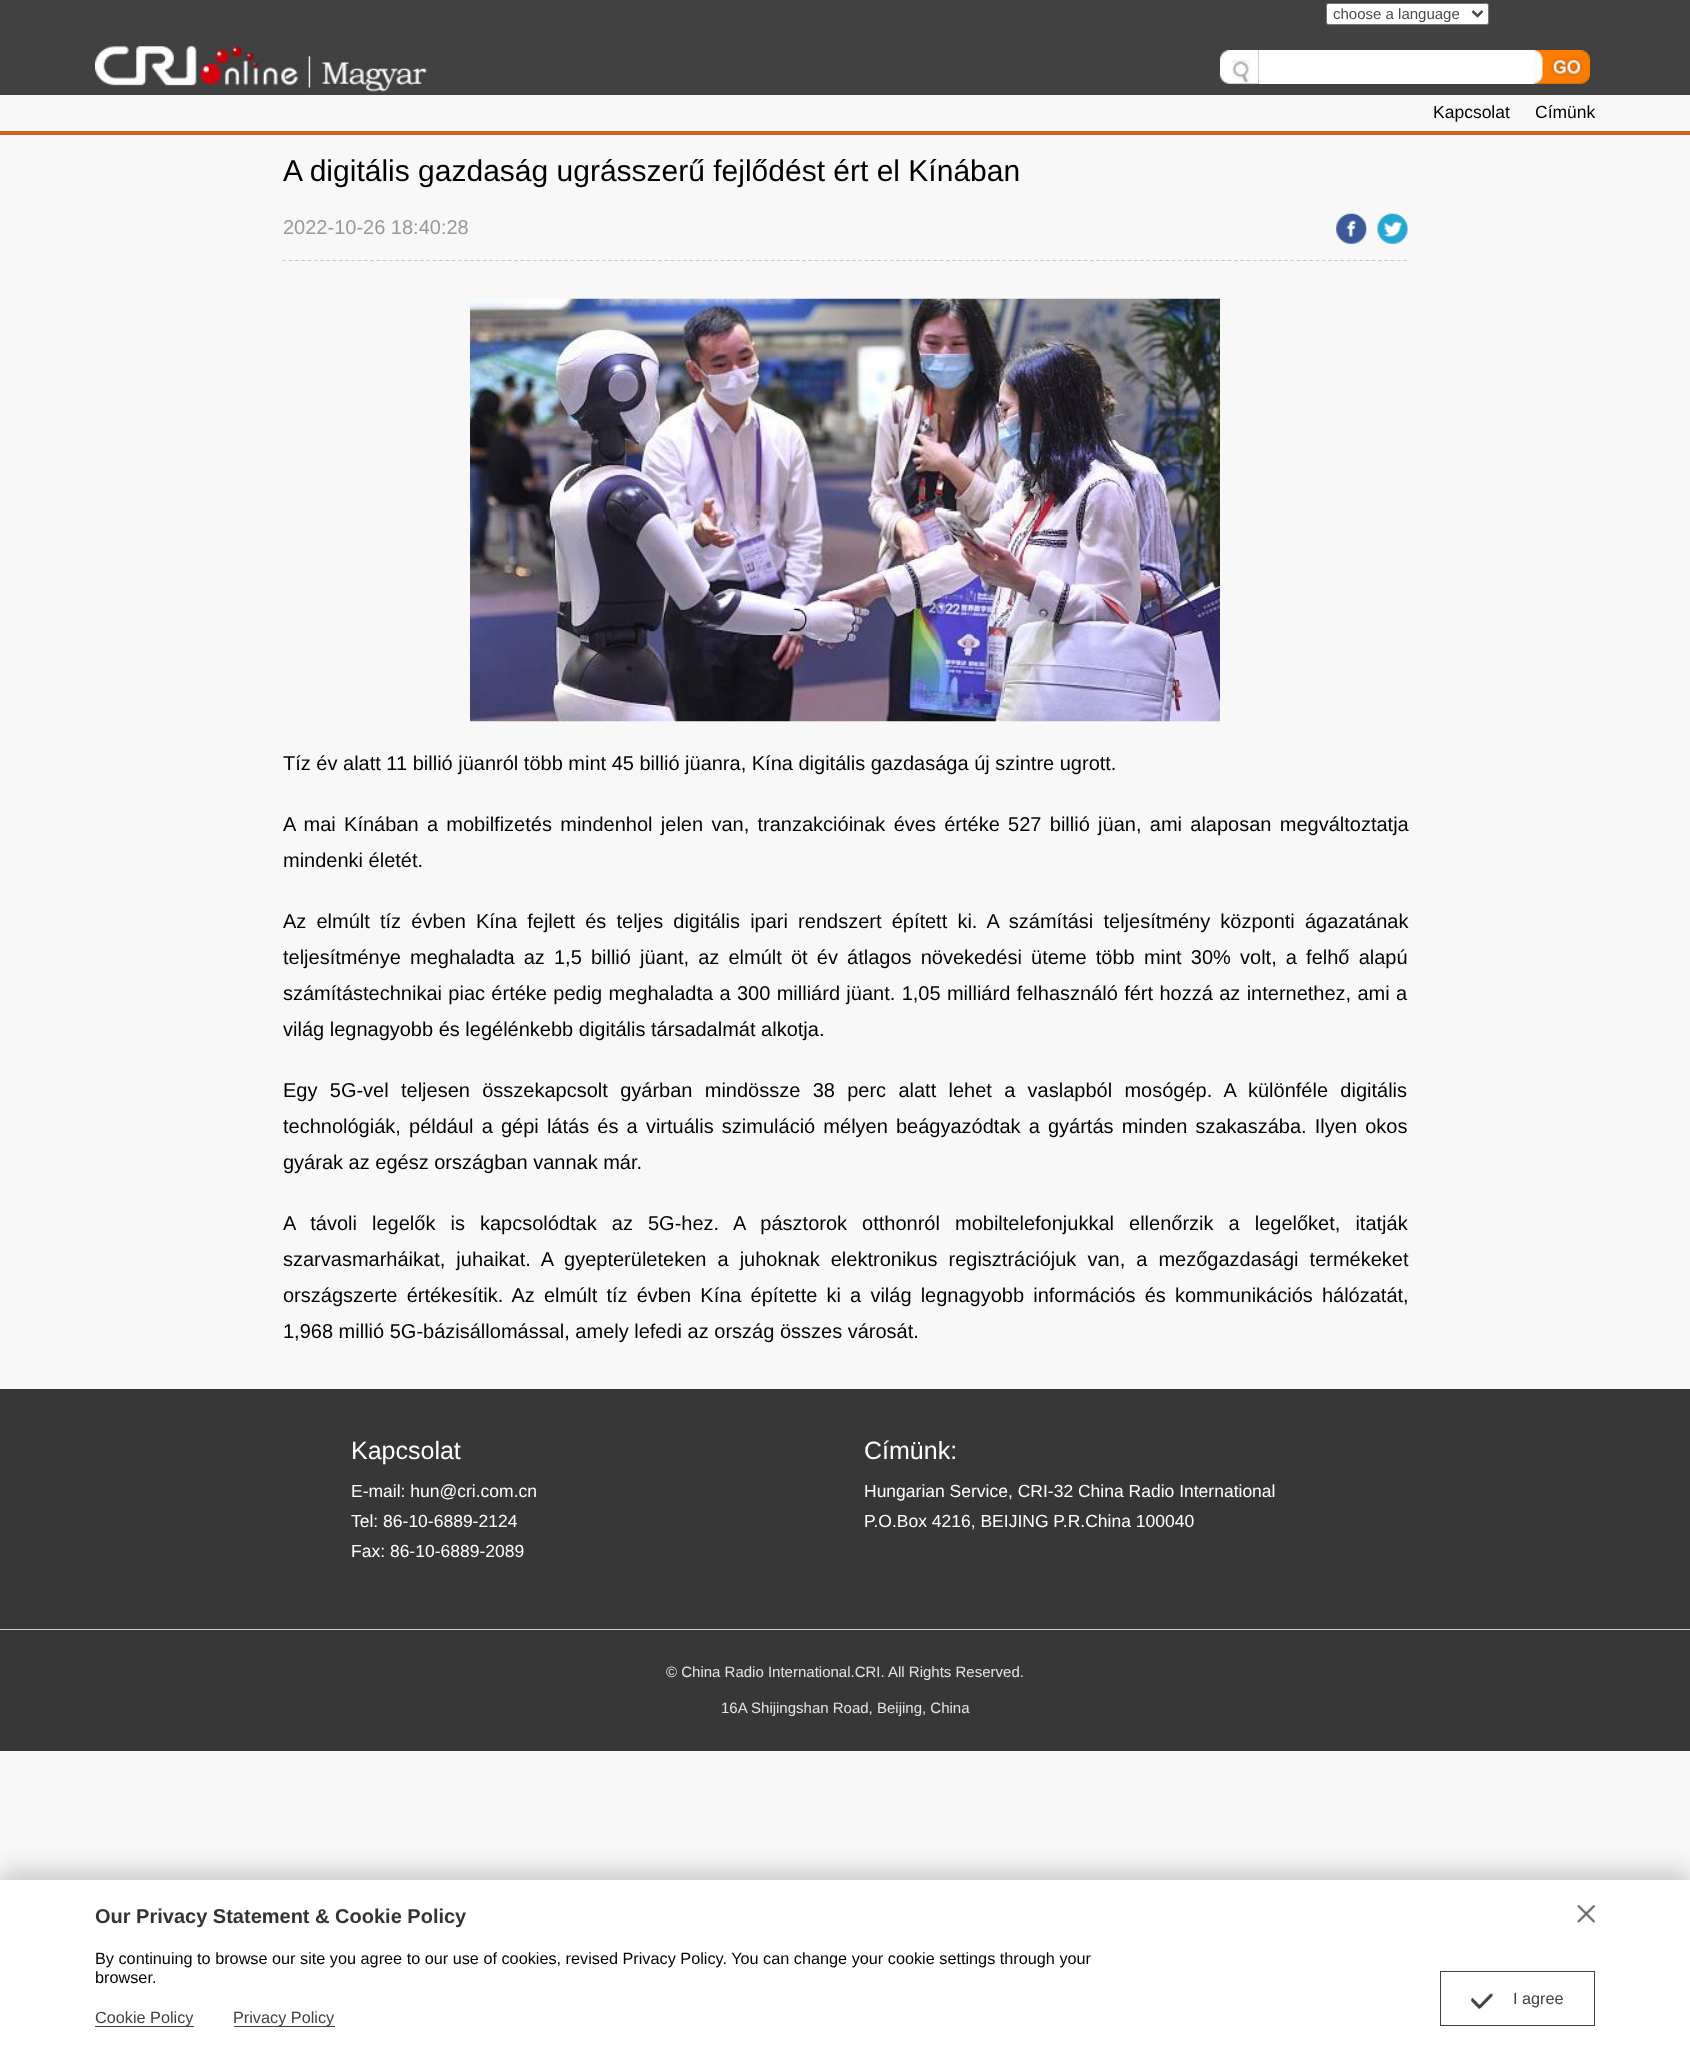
<!DOCTYPE html>
<meta charset="utf-8">
<style>body { margin: 0 } canvas { display: block }</style>
<canvas id="canvas" width="1690" height="2051"></canvas>
<script type="module">
  const canvas = document.getElementById("canvas");
  const g = canvas.getContext("2d");
  g.miterLimit = 4;
  g.fontKerning = "normal";
  function drawText(s, x, y, [font, color]) {
    g.font = font;
    g.fillStyle = color;
    g.fillText(s, x, y);
  }
  function fillBox(x, y, w, h, color) {
    g.fillStyle = color;
    g.fillRect(x, y, w, h);
  }
  async function drawPicture(src, x, y, w, h) {
    const img = new Image();
    img.src = src;
    await img.decode();
    g.drawImage(img, x, y, w, h);
  }

  const s1 = ["15px Liberation Sans", "#4B4B4B"];
  const s2 = ["17.5px Liberation Sans", "#000000"];
  const s3 = ["30px Liberation Sans", "#000000"];
  const s4 = ["20px Liberation Sans", "#999999"];
  const s5 = ["20px Liberation Sans", "#000000"];
  const s6 = ["25px Liberation Sans", "#FFFFFF"];
  const s7 = ["17.5px Liberation Sans", "#FFFFFF"];
  const s8 = ["15px Liberation Sans", "#E4E4E4"];
  const s9 = ["bold 20px Liberation Sans", "#333333"];
  const s10 = ["16.25px Liberation Sans", "#000000"];
  const s11 = ["16.25px Liberation Sans", "#414141"];

  fillBox(0, 0, 1690, 2051, "#F8F8F8");
  fillBox(0, 0, 1690, 95, "#414141");
  g.fillStyle = "#FFFFFF";
  g.beginPath();
  g.roundRect(1326.5, 3.5, 162, 21, 2);
  g.fill();
  g.strokeStyle = "#767676";
  g.stroke();
  g.beginPath();
  g.moveTo(1472.5, 11);
  g.lineTo(1477.5, 16);
  g.lineTo(1482.5, 11);
  g.strokeStyle = "#4B4B4B";
  g.lineWidth = 2.5;
  g.stroke();
  drawText("choose a language", 1333, 19, s1);
  await drawPicture("pic1.png", 1220, 50, 39, 34);
  fillBox(1259, 50, 275, 34, "#FFFFFF");
  await drawPicture("pic2.png", 1533, 50, 57, 34);
  await drawPicture("pic3.png", 95, 45, 332, 47);
  fillBox(0, 131, 1690, 4, "#D1641F");
  drawText("Kapcsolat", 1433, 118, s2);
  drawText("Címünk", 1535, 118, s2);
  drawText("A digitális gazdaság ugrásszerű fejlődést ért el Kínában", 283, 181, s3);
  g.beginPath();
  g.moveTo(282.5, 260.5);
  g.lineTo(1407.5, 260.5);
  g.strokeStyle = "#CBCBCB";
  g.lineWidth = 1.2;
  g.setLineDash([3.75, 2.51]);
  g.stroke();
  drawText("2022-10-26 18:40:28", 283, 234, s4);
  await drawPicture("pic4.png", 1336, 213, 31, 31);
  await drawPicture("pic5.png", 1377, 213, 31, 31);
  await drawPicture("pic6.png", 470, 298, 750, 424);
  drawText("Tíz év alatt 11 billió jüanról több mint 45 billió jüanra, Kína digitális gazdasága új szintre ugrott.", 283, 770, s5);
  g.wordSpacing = "2.75px";
  drawText("A mai Kínában a mobilfizetés mindenhol jelen van, tranzakcióinak éves értéke 527 billió jüan, ami alaposan megváltoztatja", 283, 831, s5);
  g.wordSpacing = "0px";
  drawText("mindenki életét.", 283, 867, s5);
  g.wordSpacing = "4.6px";
  drawText("Az elmúlt tíz évben Kína fejlett és teljes digitális ipari rendszert épített ki. A számítási teljesítmény központi ágazatának", 283, 928, s5);
  g.wordSpacing = "3.6px";
  drawText("teljesítménye meghaladta az 1,5 billió jüant, az elmúlt öt év átlagos növekedési üteme több mint 30% volt, a felhő alapú", 283, 964, s5);
  g.wordSpacing = "0.8px";
  drawText("számítástechnikai piac értéke pedig meghaladta a 300 milliárd jüant. 1,05 milliárd felhasználó fért hozzá az internethez, ami a", 283, 1000, s5);
  g.wordSpacing = "0px";
  drawText("világ legnagyobb és legélénkebb digitális társadalmát alkotja.", 283, 1036, s5);
  g.wordSpacing = "6.75px";
  drawText("Egy 5G-vel teljesen összekapcsolt gyárban mindössze 38 perc alatt lehet a vaslapból mosógép. A különféle digitális", 283, 1097, s5);
  g.wordSpacing = "2.6px";
  drawText("technológiák, például a gépi látás és a virtuális szimuláció mélyen beágyazódtak a gyártás minden szakaszába. Ilyen okos", 283, 1133, s5);
  g.wordSpacing = "0px";
  drawText("gyárak az egész országban vannak már.", 283, 1169, s5);
  g.wordSpacing = "9.5px";
  drawText("A távoli legelők is kapcsolódtak az 5G-hez. A pásztorok otthonról mobiltelefonjukkal ellenőrzik a legelőket, itatják", 283, 1230, s5);
  g.wordSpacing = "5.5px";
  drawText("szarvasmarháikat, juhaikat. A gyepterületeken a juhoknak elektronikus regisztrációjuk van, a mezőgazdasági termékeket", 283, 1266, s5);
  g.wordSpacing = "3.6px";
  drawText("országszerte értékesítik. Az elmúlt tíz évben Kína építette ki a világ legnagyobb információs és kommunikációs hálózatát,", 283, 1302, s5);
  g.wordSpacing = "0px";
  drawText("1,968 millió 5G-bázisállomással, amely lefedi az ország összes városát.", 283, 1338, s5);
  fillBox(0, 1389, 1690, 240, "#373737");
  drawText("Kapcsolat", 351, 1459, s6);
  drawText("E-mail: hun@cri.com.cn", 351, 1497, s7);
  drawText("Tel: 86-10-6889-2124", 351, 1527, s7);
  drawText("Fax: 86-10-6889-2089", 351, 1557, s7);
  drawText("Címünk:", 864, 1459, s6);
  drawText("Hungarian Service, CRI-32 China Radio International", 864, 1497, s7);
  drawText("P.O.Box 4216, BEIJING P.R.China 100040", 864, 1527, s7);
  fillBox(0, 1630, 1690, 121, "#373737");
  fillBox(0, 1629, 1690, 1, "#CDCDCD");
  drawText("© China Radio International.CRI. All Rights Reserved.", 666, 1677, s8);
  drawText("16A Shijingshan Road, Beijing, China", 721, 1713, s8);
  g.fillStyle = "rgba(0, 0, 0, 0.19)";
  g.filter = "blur(12.5px)";
  g.beginPath();
  g.rect(0, 1871, 1690, 172);
  g.fill();
  g.filter = "none";
  fillBox(0, 1880, 1690, 171, "#FFFFFF");
  drawText("Our Privacy Statement & Cookie Policy", 95, 1923, s9);
  await drawPicture("pic7.png", 1577, 1905, 19, 18);
  drawText("By continuing to browse our site you agree to our use of cookies, revised Privacy Policy. You can change your cookie settings through your", 95, 1964, s10);
  drawText("browser.", 95, 1983, s10);
  g.strokeStyle = "#414141";
  g.lineWidth = 1;
  g.setLineDash([]);
  g.strokeRect(1440.5, 1971.5, 154, 54);
  await drawPicture("pic8.png", 1471, 1993, 23, 16);
  drawText("I agree", 1513, 2004, s11);
  drawText("Cookie Policy", 95, 2023, s11);
  fillBox(95, 2026, 99, 1, "#414141");
  drawText("Privacy Policy", 233, 2023, s11);
  fillBox(234, 2026, 101, 1, "#414141");
</script>
